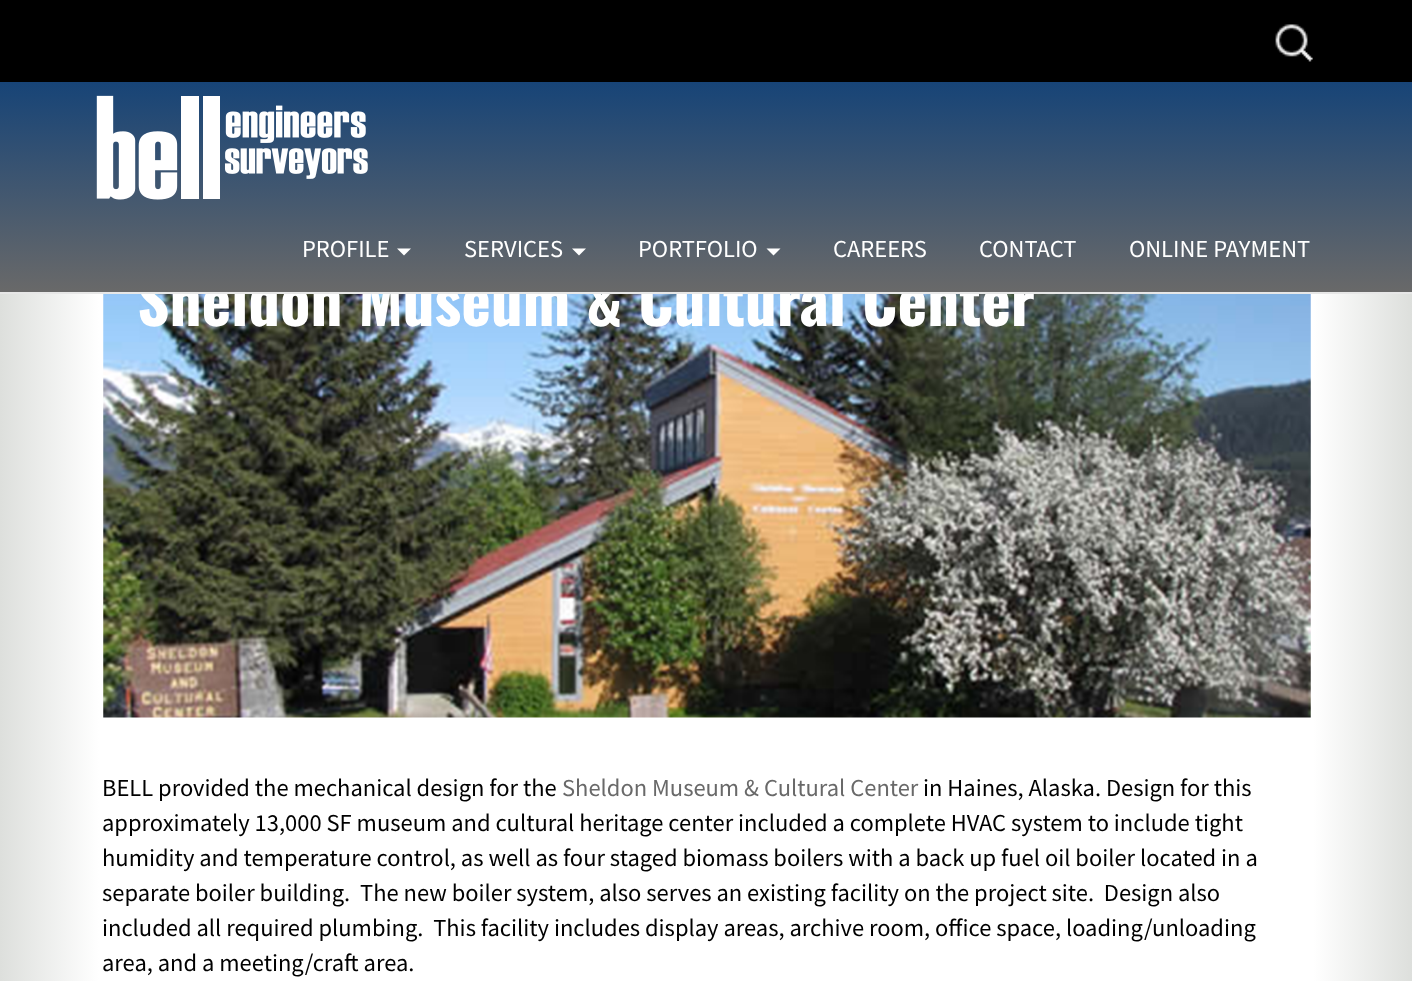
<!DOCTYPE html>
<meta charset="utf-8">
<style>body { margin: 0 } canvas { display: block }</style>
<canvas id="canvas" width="1412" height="981"></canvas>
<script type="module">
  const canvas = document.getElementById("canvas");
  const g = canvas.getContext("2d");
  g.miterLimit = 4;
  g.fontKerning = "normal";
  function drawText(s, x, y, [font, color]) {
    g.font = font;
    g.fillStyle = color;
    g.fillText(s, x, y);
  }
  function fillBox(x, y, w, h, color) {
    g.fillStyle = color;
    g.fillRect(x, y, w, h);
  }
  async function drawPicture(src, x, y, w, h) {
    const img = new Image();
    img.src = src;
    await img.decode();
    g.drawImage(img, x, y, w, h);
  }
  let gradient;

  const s1 = ["bold 63px Oswald", "#FFFFFF"];
  const s2 = ["24.5px Source Sans Pro", "#FFFFFF"];
  const s3 = ["24.5px Source Sans Pro", "#000000"];
  const s4 = ["24.5px Source Sans Pro", "#696969"];

  fillBox(0, 0, 1412, 981, "#FFFFFF");
  gradient = g.createLinearGradient(0, 735, 1412, 735);
  gradient.addColorStop(0, "#DDDFDC");
  gradient.addColorStop(0.07, "#FFFFFF");
  gradient.addColorStop(0.93, "#FFFFFF");
  gradient.addColorStop(1, "#DDDFDC");
  g.fillStyle = gradient;
  g.fillRect(0, 294, 1412, 687);
  await drawPicture("pic3.png", 103, 294, 1208, 424);
  drawText("Sheldon Museum & Cultural Center", 137, 326, s1);
  fillBox(0, 292, 1412, 2, "#E7E7E7");
  fillBox(0, 0, 1412, 82, "#000000");
  await drawPicture("pic1.png", 1275, 24, 38, 38);
  gradient = g.createLinearGradient(706, 82, 706, 292);
  gradient.addColorStop(0, "#174477");
  gradient.addColorStop(1, "#696969");
  g.fillStyle = gradient;
  g.fillRect(0, 82, 1412, 210);
  await drawPicture("pic2.png", 96, 95, 272, 105);
  drawText("PROFILE", 302, 257, s2);
  g.beginPath();
  g.moveTo(397, 248.5);
  g.lineTo(411, 248.5);
  g.lineTo(404, 255.5);
  g.closePath();
  g.fill();
  drawText("SERVICES", 464, 257, s2);
  g.beginPath();
  g.moveTo(572, 248.5);
  g.lineTo(586, 248.5);
  g.lineTo(579, 255.5);
  g.closePath();
  g.fill();
  drawText("PORTFOLIO", 638, 257, s2);
  g.beginPath();
  g.moveTo(766.5, 248.5);
  g.lineTo(780.5, 248.5);
  g.lineTo(773.5, 255.5);
  g.closePath();
  g.fill();
  drawText("CAREERS", 833, 257, s2);
  drawText("CONTACT", 979, 257, s2);
  drawText("ONLINE PAYMENT", 1129, 257, s2);
  drawText("BELL provided the mechanical design for the", 102, 796, s3);
  drawText("Sheldon Museum & Cultural Center", 562, 796, s4);
  drawText("in Haines, Alaska. Design for this", 923, 796, s3);
  drawText("approximately 13,000 SF museum and cultural heritage center included a complete HVAC system to include tight", 102, 831, s3);
  drawText("humidity and temperature control, as well as four staged biomass boilers with a back up fuel oil boiler located in a", 102, 866, s3);
  drawText("separate boiler building.  The new boiler system, also serves an existing facility on the project site.  Design also", 102, 901, s3);
  drawText("included all required plumbing.  This facility includes display areas, archive room, office space, loading/unloading", 102, 936, s3);
  drawText("area, and a meeting/craft area.", 102, 971, s3);
</script>
